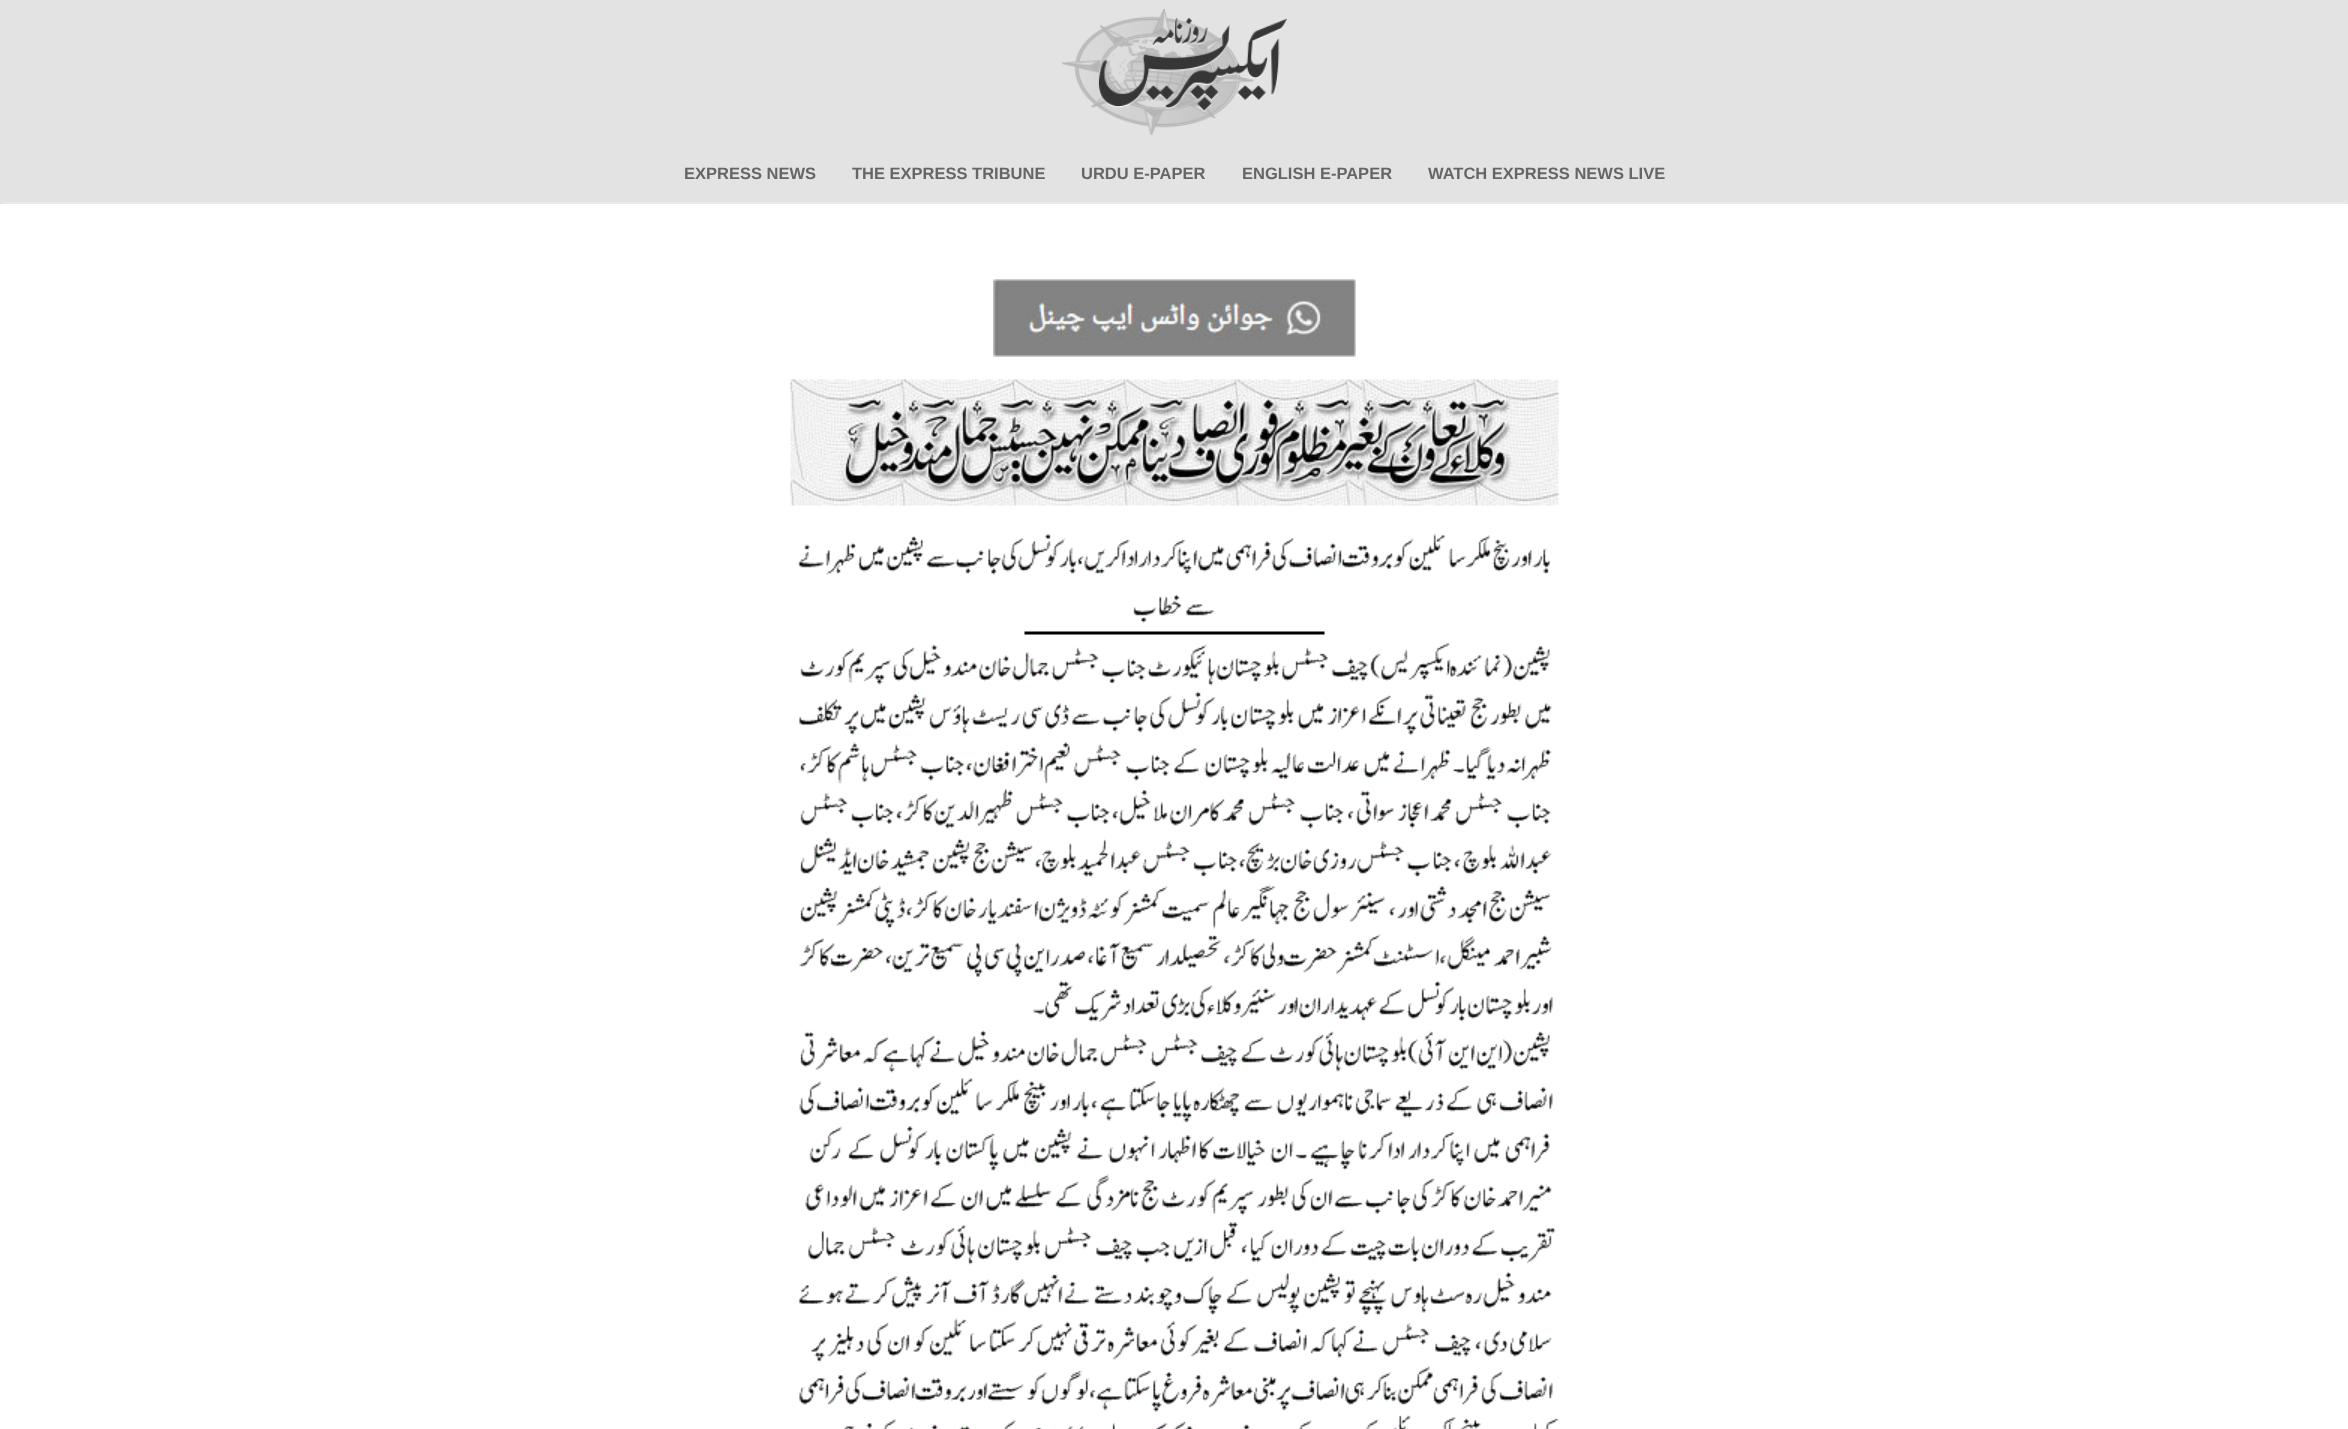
<!DOCTYPE html>
<meta charset="utf-8">
<style>body { margin: 0 } canvas { display: block }</style>
<canvas id="canvas" width="2348" height="1429"></canvas>
<script type="module">
  const canvas = document.getElementById("canvas");
  const g = canvas.getContext("2d");
  g.miterLimit = 4;
  g.fontKerning = "normal";
  function drawText(s, x, y, [font, color]) {
    g.font = font;
    g.fillStyle = color;
    g.fillText(s, x, y);
  }
  function fillBox(x, y, w, h, color) {
    g.fillStyle = color;
    g.fillRect(x, y, w, h);
  }
  async function drawPicture(src, x, y, w, h) {
    const img = new Image();
    img.src = src;
    await img.decode();
    g.drawImage(img, x, y, w, h);
  }

  const s1 = ["bold 16.5px Liberation Sans", "#666666"];

  fillBox(0, 0, 2348, 1429, "#FFFFFF");
  fillBox(0, 0, 2348, 204, "#E3E3E3");
  g.beginPath();
  g.moveTo(2346.5, 201.5);
  g.bezierCurveTo(2345.5, 202.5, 2344.5, 203, 2343, 203);
  g.lineTo(6, 203);
  g.bezierCurveTo(4.5, 203, 3.5, 202.5, 2.5, 201.5);
  g.strokeStyle = "#ECECEC";
  g.lineWidth = 1.5;
  g.stroke();
  await drawPicture("pic1.png", 1062, 9, 225, 126);
  drawText("EXPRESS NEWS", 684, 179, s1);
  drawText("THE EXPRESS TRIBUNE", 852, 179, s1);
  drawText("URDU E-PAPER", 1081, 179, s1);
  drawText("ENGLISH E-PAPER", 1242, 179, s1);
  drawText("WATCH EXPRESS NEWS LIVE", 1428, 179, s1);
  await drawPicture("pic2.png", 993, 279, 363, 78);
  await drawPicture("pic3.png", 790, 379, 769, 127);
  await drawPicture("pic4.png", 797, 533, 762, 896);
</script>
